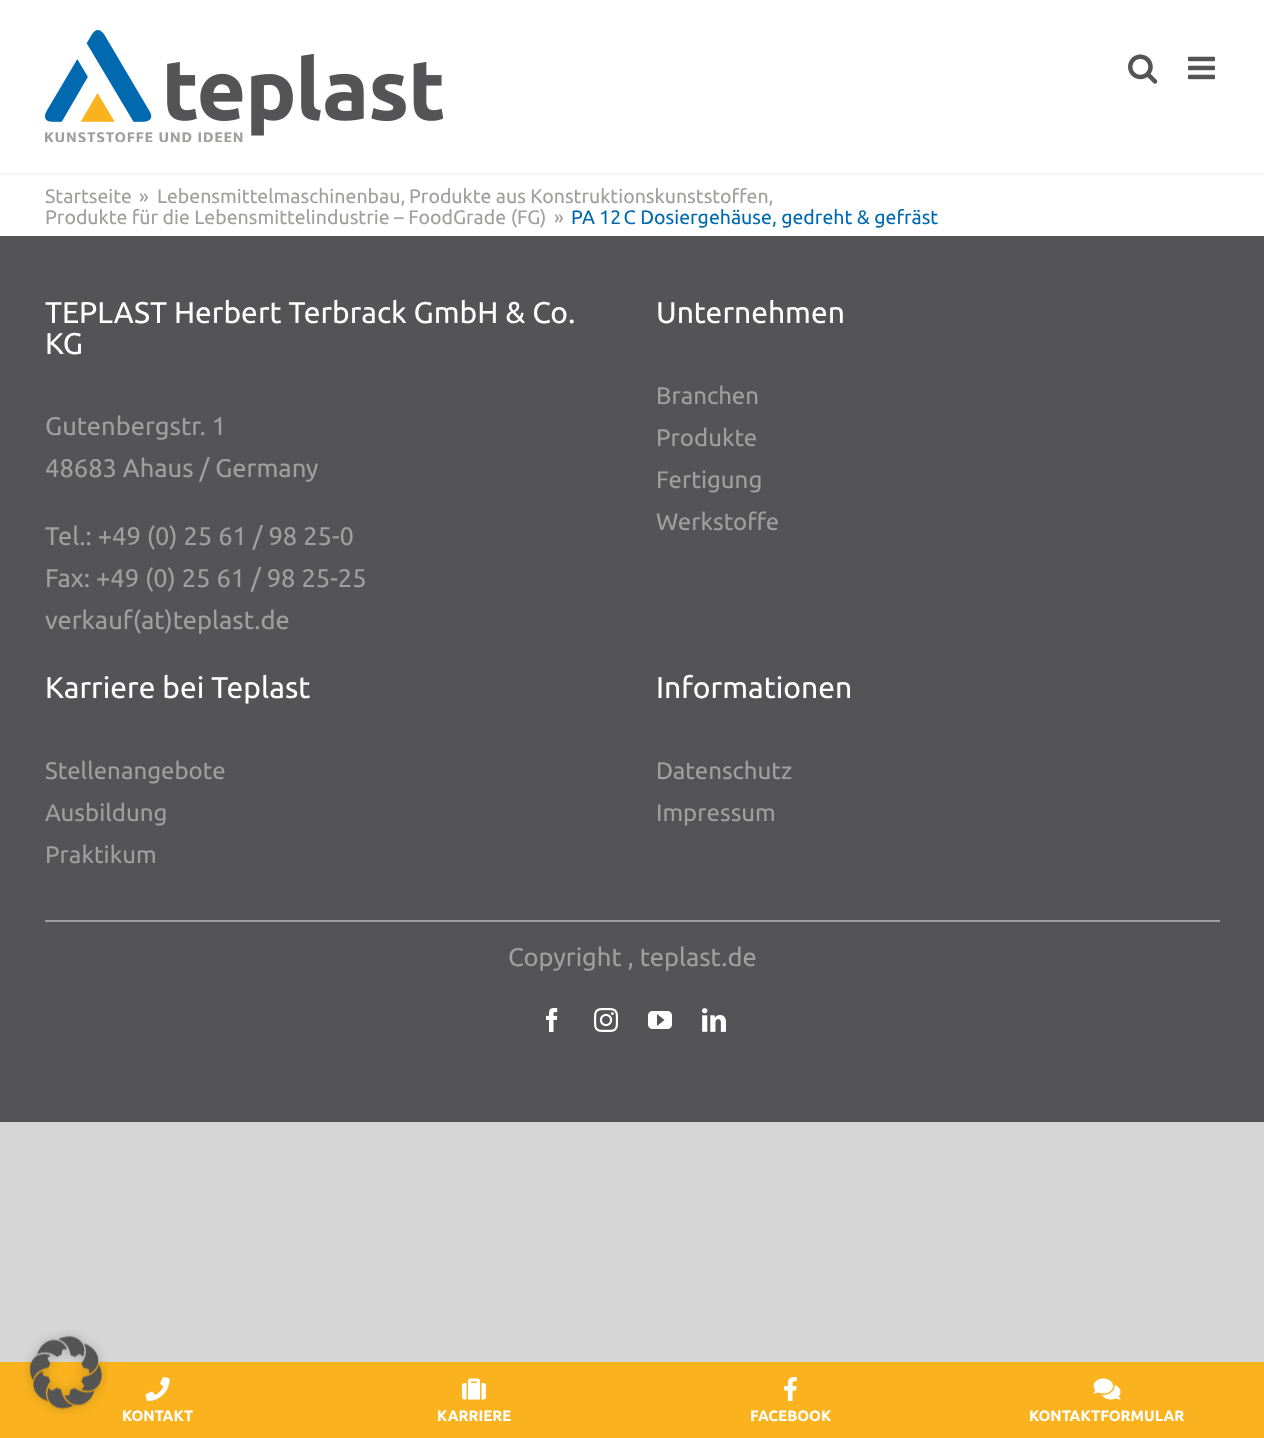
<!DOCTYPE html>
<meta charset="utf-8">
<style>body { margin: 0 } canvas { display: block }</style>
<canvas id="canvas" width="1264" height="1438"></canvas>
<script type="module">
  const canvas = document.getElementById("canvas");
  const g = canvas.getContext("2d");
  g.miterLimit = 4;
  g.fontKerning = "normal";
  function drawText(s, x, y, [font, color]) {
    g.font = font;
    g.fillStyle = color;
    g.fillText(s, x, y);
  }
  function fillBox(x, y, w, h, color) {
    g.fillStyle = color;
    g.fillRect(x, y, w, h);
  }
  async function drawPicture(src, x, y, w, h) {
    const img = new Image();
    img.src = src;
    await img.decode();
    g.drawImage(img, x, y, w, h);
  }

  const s1 = ["19.5px Ubuntu", "#9FA09D"];
  const s2 = ["19.5px Ubuntu", "#0069AF"];
  const s3 = ["30px Ubuntu", "#FFFFFF"];
  const s4 = ["25.5px Ubuntu", "#9FA09D"];
  const s5 = ["24px Ubuntu", "#9FA09D"];
  const s6 = ["bold 15px Ubuntu", "#FFFFFF"];

  fillBox(0, 0, 1264, 1438, "#D7D6D6");
  fillBox(0, 0, 1264, 236, "#FFFFFF");
  fillBox(0, 173, 1264, 2, "#F6F6F6");
  await drawPicture("pic1.png", 45, 30, 398, 112);
  await drawPicture("pic2.png", 1128, 54, 30, 30);
  await drawPicture("pic3.png", 1188, 56, 27, 24);
  drawText("Startseite", 45, 203, s1);
  drawText("»", 139, 203, s1);
  drawText("Lebensmittelmaschinenbau,", 157, 203, s1);
  drawText("Produkte aus Konstruktionskunststoffen,", 409, 203, s1);
  drawText("Produkte für die Lebensmittelindustrie – FoodGrade (FG)", 45, 224, s1);
  drawText("»", 554, 224, s1);
  drawText("PA 12 C Dosiergehäuse, gedreht & gefräst", 571, 224, s2);
  fillBox(0, 236, 1264, 886, "#545456");
  drawText("TEPLAST Herbert Terbrack GmbH & Co.", 45, 323, s3);
  drawText("KG", 45, 354, s3);
  drawText("Gutenbergstr. 1", 45, 435, s4);
  drawText("48683 Ahaus / Germany", 45, 477, s4);
  drawText("Tel.: +49 (0) 25 61 / 98 25-0", 45, 545, s4);
  drawText("Fax: +49 (0) 25 61 / 98 25-25", 45, 587, s4);
  drawText("verkauf(at)teplast.de", 45, 629, s4);
  drawText("Unternehmen", 656, 323, s3);
  drawText("Branchen", 656, 404, s5);
  drawText("Produkte", 656, 446, s5);
  drawText("Fertigung", 656, 488, s5);
  drawText("Werkstoffe", 656, 530, s5);
  drawText("Karriere bei Teplast", 45, 698, s3);
  drawText("Stellenangebote", 45, 779, s5);
  drawText("Ausbildung", 45, 821, s5);
  drawText("Praktikum", 45, 863, s5);
  drawText("Informationen", 656, 698, s3);
  drawText("Datenschutz", 656, 779, s5);
  drawText("Impressum", 656, 821, s5);
  fillBox(45, 920, 1175, 2, "#9FA09D");
  drawText("Copyright , teplast.de", 508, 966, s4);
  await drawPicture("pic4.png", 546, 1008, 12, 24);
  await drawPicture("pic5.png", 594, 1008, 24, 24);
  await drawPicture("pic6.png", 648, 1011, 24, 18);
  await drawPicture("pic7.png", 702, 1008, 24, 24);
  fillBox(0, 1362, 1264, 76, "#FAB31E");
  await drawPicture("pic8.png", 24, 1330, 84, 84);
  await drawPicture("pic9.png", 145, 1377, 25, 24);
  drawText("KONTAKT", 122, 1421, s6);
  await drawPicture("pic10.png", 462, 1378, 24, 22);
  drawText("KARRIERE", 437, 1421, s6);
  await drawPicture("pic11.png", 784, 1377, 13, 24);
  drawText("FACEBOOK", 750, 1421, s6);
  await drawPicture("pic12.png", 1093, 1378, 28, 22);
  drawText("KONTAKTFORMULAR", 1029, 1421, s6);
</script>
